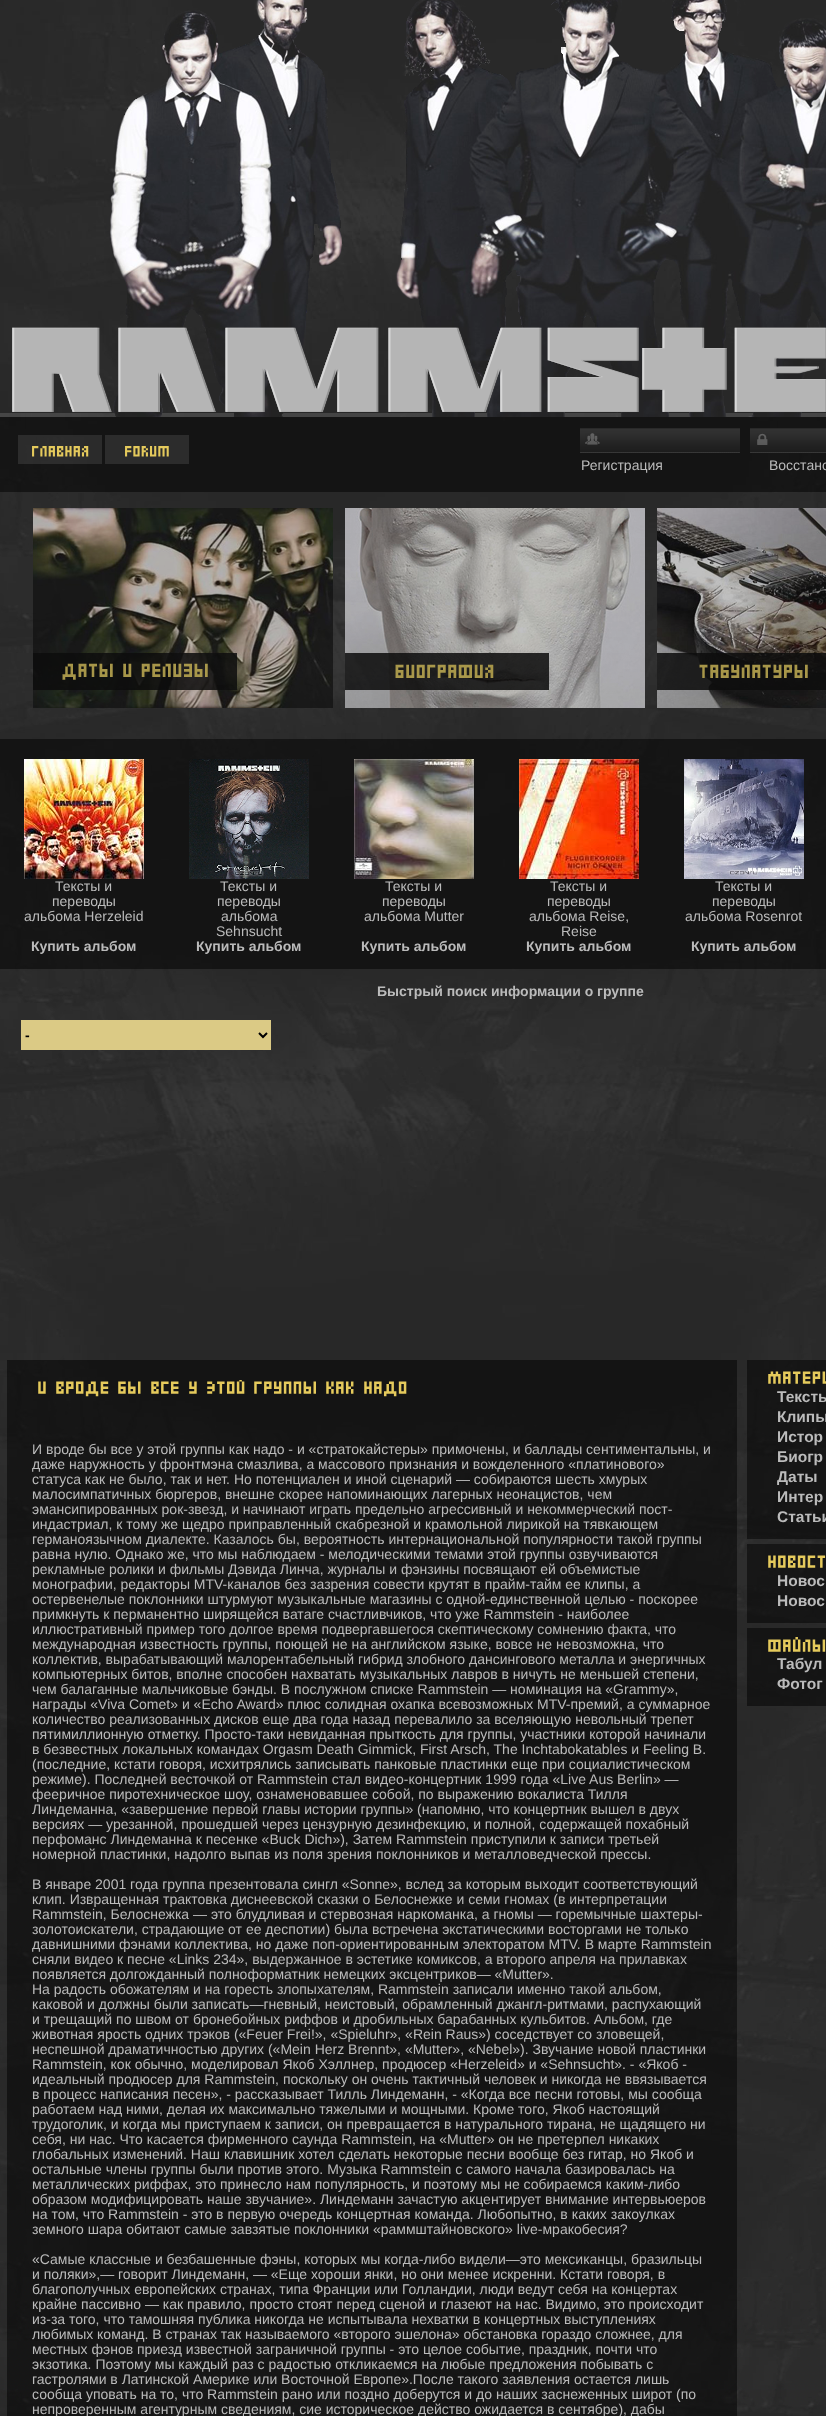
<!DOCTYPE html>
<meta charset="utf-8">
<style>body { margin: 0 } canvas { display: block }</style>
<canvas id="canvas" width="826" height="2416"></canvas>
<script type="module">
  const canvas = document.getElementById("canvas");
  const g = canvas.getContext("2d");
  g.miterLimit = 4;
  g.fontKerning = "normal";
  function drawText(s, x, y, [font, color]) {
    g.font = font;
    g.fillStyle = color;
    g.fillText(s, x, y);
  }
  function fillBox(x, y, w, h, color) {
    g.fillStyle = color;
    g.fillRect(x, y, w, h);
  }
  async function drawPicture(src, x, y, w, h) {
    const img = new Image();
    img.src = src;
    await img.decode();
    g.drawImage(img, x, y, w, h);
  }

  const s1 = ["14px Liberation Sans", "#BBBBBB"];
  const s2 = ["bold 14px Liberation Sans", "#BBBBBB"];
  const s3 = ["bold 14px Liberation Sans", "#000000"];
  const s4 = ["bold 15.5px Liberation Sans", "#BBBBBB"];

  fillBox(0, 0, 826, 2416, "#FFFFFF");
  await drawPicture("pic1.png", 0, 2383, 826, 33);
  await drawPicture("pic2.png", 0, 413, 826, 1970);
  await drawPicture("pic3.png", 0, 0, 826, 417);
  await drawPicture("pic4.png", 12, 327, 814, 85);
  fillBox(0, 417, 826, 75, "rgba(0, 0, 0, 0.5)");
  fillBox(18, 435, 84, 29, "rgba(255, 255, 255, 0.1)");
  await drawPicture("pic5.png", 32, 446, 57, 11);
  fillBox(105, 435, 84, 29, "#2C2C2C");
  await drawPicture("pic6.png", 125, 446, 44, 11);
  await drawPicture("pic7.png", 580, 428, 160, 25);
  await drawPicture("pic8.png", 585, 433, 15, 12);
  await drawPicture("pic9.png", 750, 428, 76, 25);
  await drawPicture("pic10.png", 757, 433, 11, 12);
  drawText("Регистрация", 581, 470, s1);
  drawText("Восстано", 769, 470, s1);
  await drawPicture("pic11.png", 33, 508, 300, 200);
  await drawPicture("pic12.png", 345, 508, 300, 200);
  await drawPicture("pic13.png", 657, 508, 169, 200);
  fillBox(0, 739, 826, 230, "rgba(0, 0, 0, 0.5)");
  await drawPicture("pic14.png", 24, 759, 120, 120);
  drawText("Тексты и", 55, 891, s1);
  drawText("переводы", 52, 906, s1);
  drawText("альбома Herzeleid", 24, 921, s1);
  drawText("Купить альбом", 31, 951, s2);
  await drawPicture("pic15.png", 189, 759, 120, 120);
  drawText("Тексты и", 220, 891, s1);
  drawText("переводы", 217, 906, s1);
  drawText("альбома", 221, 921, s1);
  drawText("Sehnsucht", 216, 936, s1);
  drawText("Купить альбом", 196, 951, s2);
  await drawPicture("pic16.png", 354, 759, 120, 120);
  drawText("Тексты и", 385, 891, s1);
  drawText("переводы", 382, 906, s1);
  drawText("альбома Mutter", 364, 921, s1);
  drawText("Купить альбом", 361, 951, s2);
  await drawPicture("pic17.png", 519, 759, 120, 120);
  drawText("Тексты и", 550, 891, s1);
  drawText("переводы", 547, 906, s1);
  drawText("альбома Reise,", 529, 921, s1);
  drawText("Reise", 561, 936, s1);
  drawText("Купить альбом", 526, 951, s2);
  await drawPicture("pic18.png", 684, 759, 120, 120);
  drawText("Тексты и", 715, 891, s1);
  drawText("переводы", 712, 906, s1);
  drawText("альбома Rosenrot", 685, 921, s1);
  drawText("Купить альбом", 691, 951, s2);
  drawText("Быстрый поиск информации о группе", 377, 996, s2);
  fillBox(21, 1020, 250, 30, "#DBCA85");
  g.beginPath();
  g.moveTo(259, 1033);
  g.lineTo(263, 1037);
  g.lineTo(267, 1033);
  g.strokeStyle = "#000000";
  g.lineWidth = 2;
  g.stroke();
  drawText("-", 25, 1040, s3);
  fillBox(7, 1360, 730, 1056, "rgba(0, 0, 0, 0.5)");
  await drawPicture("pic19.png", 38, 1381, 8, 13);
  await drawPicture("pic20.png", 56, 1381, 53, 16);
  await drawPicture("pic21.png", 118, 1381, 23, 13);
  await drawPicture("pic22.png", 151, 1381, 28, 13);
  await drawPicture("pic23.png", 189, 1381, 8, 13);
  await drawPicture("pic24.png", 207, 1380, 38, 14);
  await drawPicture("pic25.png", 254, 1381, 62, 13);
  await drawPicture("pic26.png", 326, 1381, 28, 13);
  await drawPicture("pic27.png", 364, 1381, 43, 16);
  drawText("И вроде бы все у этой группы как надо - и «стратокайстеры» примочены, и баллады сентиментальны, и", 32, 1454, s1);
  drawText("даже наружность у фронтмэна смазлива, а массового признания и вожделенного «платинового»", 32, 1469, s1);
  drawText("статуса как не было, так и нет. Но потенциален и иной сценарий — собираются шесть хмурых", 32, 1484, s1);
  drawText("малосимпатичных бюргеров, внешне скорее напоминающих лагерных неонацистов, чем", 32, 1499, s1);
  drawText("эмансипированных рок-звезд, и начинают играть предельно агрессивный и некоммерческий пост-", 32, 1514, s1);
  drawText("индастриал, к тому же щедро приправленный скабрезной и крамольной лирикой на тявкающем", 32, 1529, s1);
  drawText("германоязычном диалекте. Казалось бы, вероятность интернациональной популярности такой группы", 32, 1544, s1);
  drawText("равна нулю. Однако же, что мы наблюдаем - мелодическими темами этой группы озвучиваются", 32, 1559, s1);
  drawText("рекламные ролики и фильмы Дэвида Линча, журналы и фэнзины посвящают ей объемистые", 32, 1574, s1);
  drawText("монографии, редакторы MTV-каналов без зазрения совести крутят в прайм-тайм ее клипы, а", 32, 1589, s1);
  drawText("остервенелые поклонники штурмуют музыкальные магазины с одной-единственной целью - поскорее", 32, 1604, s1);
  drawText("примкнуть к перманентно ширящейся ватаге счастливчиков, что уже Rammstein - наиболее", 32, 1619, s1);
  drawText("иллюстративный пример того долгое время подвергавшегося скептическому сомнению факта, что", 32, 1634, s1);
  drawText("международная известность группы, поющей не на английском языке, вовсе не невозможна, что", 32, 1649, s1);
  drawText("коллектив, вырабатывающий малорентабельный гибрид злобного дансингового металла и энергичных", 32, 1664, s1);
  drawText("компьютерных битов, вполне способен нахватать музыкальных лавров в ничуть не меньшей степени,", 32, 1679, s1);
  drawText("чем балаганные мальчиковые бэнды. В послужном списке Rammstein — номинация на «Grammy»,", 32, 1694, s1);
  drawText("награды «Viva Comet» и «Echo Award» плюс солидная охапка всевозможных MTV-премий, а суммарное", 32, 1709, s1);
  drawText("количество реализованных дисков еще два года назад перевалило за вселяющую невольный трепет", 32, 1724, s1);
  drawText("пятимиллионную отметку. Просто-таки невиданная прыткость для группы, участники которой начинали", 32, 1739, s1);
  drawText("в безвестных локальных командах Orgasm Death Gimmick, First Arsch, The Inchtabokatables и Feeling В.", 32, 1754, s1);
  drawText("(последние, кстати говоря, исхитрялись записывать панковые пластинки еще при социалистическом", 32, 1769, s1);
  drawText("режиме). Последней весточкой от Rammstein стал видео-концертник 1999 года «Live Aus Berlin» —", 32, 1784, s1);
  drawText("фееричное пиротехническое шоу, ознаменовавшее собой, по выражению вокалиста Тилля", 32, 1799, s1);
  drawText("Линдеманна, «завершение первой главы истории группы» (напомню, что концертник вышел в двух", 32, 1814, s1);
  drawText("версиях — урезанной, прошедшей через цензурную дезинфекцию, и полной, содержащей похабный", 32, 1829, s1);
  drawText("перфоманс Линдеманна к песенке «Buck Dich»), Затем Rammstein приступили к записи третьей", 32, 1844, s1);
  drawText("номерной пластинки, надолго выпав из поля зрения поклонников и металловедческой прессы.", 32, 1859, s1);
  drawText("В январе 2001 года группа презентовала сингл «Sonne», вслед за которым выходит соответствующий", 32, 1889, s1);
  drawText("клип. Извращенная трактовка диснеевской сказки о Белоснежке и семи гномах (в интерпретации", 32, 1904, s1);
  drawText("Rammstein, Белоснежка — это блудливая и стервозная наркоманка, а гномы — горемычные шахтеры-", 32, 1919, s1);
  drawText("золотоискатели, страдающие от ее деспотии) была встречена экстатическими восторгами не только", 32, 1934, s1);
  drawText("давнишними фэнами коллектива, но даже поп-ориентированным электоратом MTV. В марте Rammstein", 32, 1949, s1);
  drawText("сняли видео к песне «Links 234», выдержанное в эстетике комиксов, а второго апреля на прилавках", 32, 1964, s1);
  drawText("появляется долгожданный полноформатник немецких эксцентриков— «Mutter».", 32, 1979, s1);
  drawText("На радость обожателям и на горесть злопыхателям, Rammstein записали именно такой альбом,", 32, 1994, s1);
  drawText("каковой и должны были записать—гневный, неистовый, обрамленный джангл-ритмами, распухающий", 32, 2009, s1);
  drawText("и трещащий по швом от бронебойных риффов и дробильных барабанных кульбитов. Альбом, где", 32, 2024, s1);
  drawText("животная ярость одних трэков («Feuer Frei!», «Spieluhr», «Rein Raus») соседствует со зловещей,", 32, 2039, s1);
  drawText("неспешной драматичностью других («Mein Herz Brennt», «Mutter», «Nebel»). Звучание новой пластинки", 32, 2054, s1);
  drawText("Rammstein, кок обычно, моделировал Якоб Хэллнер, продюсер «Herzeleid» и «Sehnsucht». - «Якоб -", 32, 2069, s1);
  drawText("идеальный продюсер для Rammstein, поскольку он очень тактичный человек и никогда не ввязывается", 32, 2084, s1);
  drawText("в процесс написания песен», - рассказывает Тилль Линдеманн, - «Когда все песни готовы, мы сообща", 32, 2099, s1);
  drawText("работаем над ними, делая их максимально тяжелыми и мощными. Кроме того, Якоб настоящий", 32, 2114, s1);
  drawText("трудоголик, и когда мы приступаем к записи, он превращается в натурального тирана, не щадящего ни", 32, 2129, s1);
  drawText("себя, ни нас. Что касается фирменного саунда Rammstein, на «Mutter» он не претерпел никаких", 32, 2144, s1);
  drawText("глобальных изменений. Наш клавишник хотел сделать некоторые песни вообще без гитар, но Якоб и", 32, 2159, s1);
  drawText("остальные члены группы были против этого. Музыка Rammstein с самого начала базировалась на", 32, 2174, s1);
  drawText("металлических риффах, это принесло нам популярность, и поэтому мы не собираемся каким-либо", 32, 2189, s1);
  drawText("образом модифицировать наше звучание». Линдеманн зачастую акцентирует внимание интервьюеров", 32, 2204, s1);
  drawText("на том, что Rammstein - это в первую очередь концертная команда. Любопытно, в каких закоулках", 32, 2219, s1);
  drawText("земного шара обитают самые завзятые поклонники «раммштайновского» live-мракобесия?", 32, 2234, s1);
  drawText("«Самые классные и безбашенные фэны, которых мы когда-либо видели—это мексиканцы, бразильцы", 32, 2264, s1);
  drawText("и поляки»,— говорит Линдеманн, — «Еще хороши янки, но они менее искренни. Кстати говоря, в", 32, 2279, s1);
  drawText("благополучных европейских странах, типа Франции или Голландии, люди ведут себя на концертах", 32, 2294, s1);
  drawText("крайне пассивно — как правило, просто стоят перед сценой и глазеют на нас. Видимо, это происходит", 32, 2309, s1);
  drawText("из-за того, что тамошняя публика никогда не испытывала нехватки в концертных выступлениях", 32, 2324, s1);
  drawText("любимых команд. В странах так называемого «второго эшелона» обстановка гораздо сложнее, для", 32, 2339, s1);
  drawText("местных фэнов приезд известной заграничной группы - это целое событие, праздник, почти что", 32, 2354, s1);
  drawText("экзотика. Поэтому мы каждый раз с радостью откликаемся на любые предложения побывать с", 32, 2369, s1);
  drawText("гастролями в Латинской Америке или Восточной Европе».После такого заявления остается лишь", 32, 2384, s1);
  drawText("сообща уповать на то, что Rammstein рано или поздно доберутся и до наших заснеженных широт (по", 32, 2399, s1);
  drawText("непроверенным агентурным сведениям, сие историческое действо ожидается в сентябре), дабы", 32, 2414, s1);
  fillBox(747, 1360, 79, 179, "rgba(0, 0, 0, 0.5)");
  await drawPicture("pic28.png", 768, 1371, 58, 13);
  drawText("Тексты", 777, 1402, s4);
  drawText("Клипы", 777, 1422, s4);
  drawText("Истор", 777, 1442, s4);
  drawText("Биогр", 777, 1462, s4);
  drawText("Даты", 777, 1482, s4);
  drawText("Интер", 777, 1502, s4);
  drawText("Статьи", 777, 1522, s4);
  fillBox(747, 1544, 79, 79, "rgba(0, 0, 0, 0.5)");
  await drawPicture("pic29.png", 768, 1555, 58, 13);
  drawText("Новос", 777, 1586, s4);
  drawText("Новос", 777, 1606, s4);
  fillBox(747, 1628, 79, 78, "rgba(0, 0, 0, 0.5)");
  await drawPicture("pic30.png", 768, 1637, 58, 15);
  drawText("Табул", 777, 1669, s4);
  drawText("Фотог", 777, 1689, s4);
</script>
